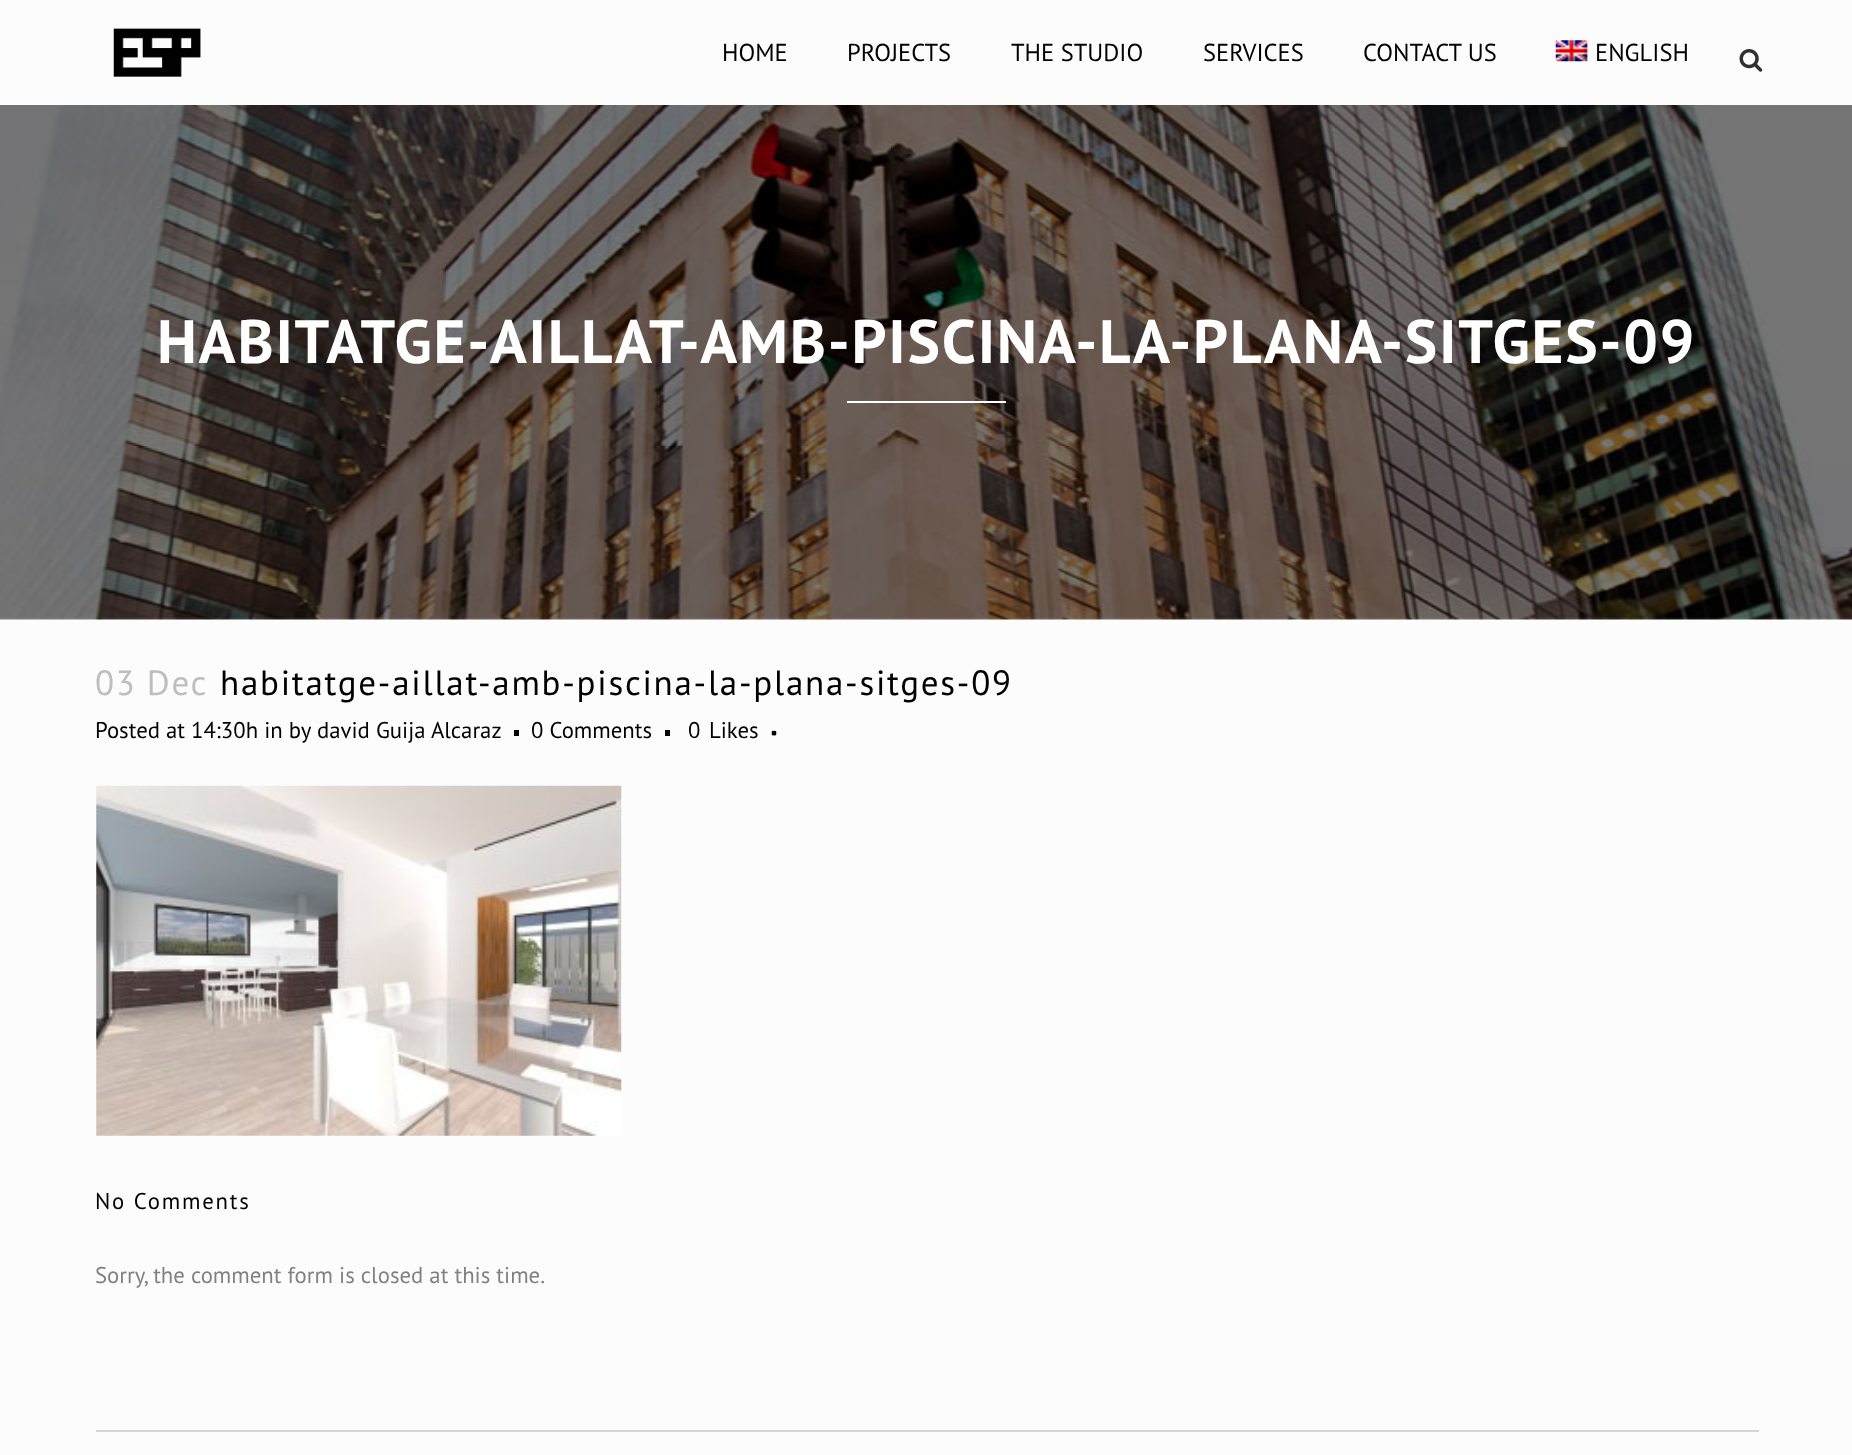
<!DOCTYPE html>
<meta charset="utf-8">
<style>body { margin: 0 } canvas { display: block }</style>
<canvas id="canvas" width="1852" height="1455"></canvas>
<script type="module">
  const canvas = document.getElementById("canvas");
  const g = canvas.getContext("2d");
  g.miterLimit = 4;
  g.fontKerning = "normal";
  function drawText(s, x, y, [font, color]) {
    g.font = font;
    g.fillStyle = color;
    g.fillText(s, x, y);
  }
  function fillBox(x, y, w, h, color) {
    g.fillStyle = color;
    g.fillRect(x, y, w, h);
  }
  async function drawPicture(src, x, y, w, h) {
    const img = new Image();
    img.src = src;
    await img.decode();
    g.drawImage(img, x, y, w, h);
  }

  const s1 = ["24.5px PT Sans", "#000000"];
  const s2 = ["bold 61.25px PT Sans", "#FFFFFF"];
  const s3 = ["35px PT Sans", "#BEBEBE"];
  const s4 = ["35px PT Sans", "#000000"];
  const s5 = ["22.75px PT Sans", "#000000"];
  const s6 = ["22.75px PT Sans", "#818181"];

  fillBox(0, 0, 1852, 1455, "#FCFCFC");
  await drawPicture("pic1.png", 113, 28, 88, 49);
  drawText("HOME", 722, 61, s1);
  drawText("PROJECTS", 847, 61, s1);
  drawText("THE STUDIO", 1011, 61, s1);
  drawText("SERVICES", 1203, 61, s1);
  drawText("CONTACT US", 1363, 61, s1);
  await drawPicture("pic2.png", 1555, 40, 33, 22);
  drawText("ENGLISH", 1595, 61, s1);
  await drawPicture("pic3.png", 1739, 49, 24, 23);
  await drawPicture("pic4.png", 0, 105, 1852, 515);
  g.letterSpacing = "1.75px";
  drawText("HABITATGE-AILLAT-AMB-PISCINA-LA-PLANA-SITGES-09", 157, 363, s2);
  fillBox(847, 401, 159, 2, "#FFFFFF");
  g.wordSpacing = "-1px";
  drawText("03 Dec", 95, 695, s3);
  g.wordSpacing = "0px";
  drawText("habitatge-aillat-amb-piscina-la-plana-sitges-09", 220, 695, s4);
  g.letterSpacing = "0px";
  drawText("Posted at 14:30h in by", 95, 738, s5);
  drawText("david Guija Alcaraz", 317, 738, s5);
  fillBox(514, 730, 5, 6, "#000000");
  drawText("0 Comments", 531, 738, s5);
  fillBox(665, 730, 5, 6, "#000000");
  drawText("0", 688, 738, s5);
  drawText("Likes", 709, 738, s5);
  await drawPicture("pic5.png", 771, 730, 6, 6);
  await drawPicture("pic6.png", 96, 785, 526, 351);
  g.letterSpacing = "1.75px";
  drawText("No Comments", 95, 1209, s5);
  g.letterSpacing = "0px";
  drawText("Sorry, the comment form is closed at this time.", 95, 1283, s6);
  fillBox(96, 1430, 1663, 2, "#D6D6D6");
</script>
